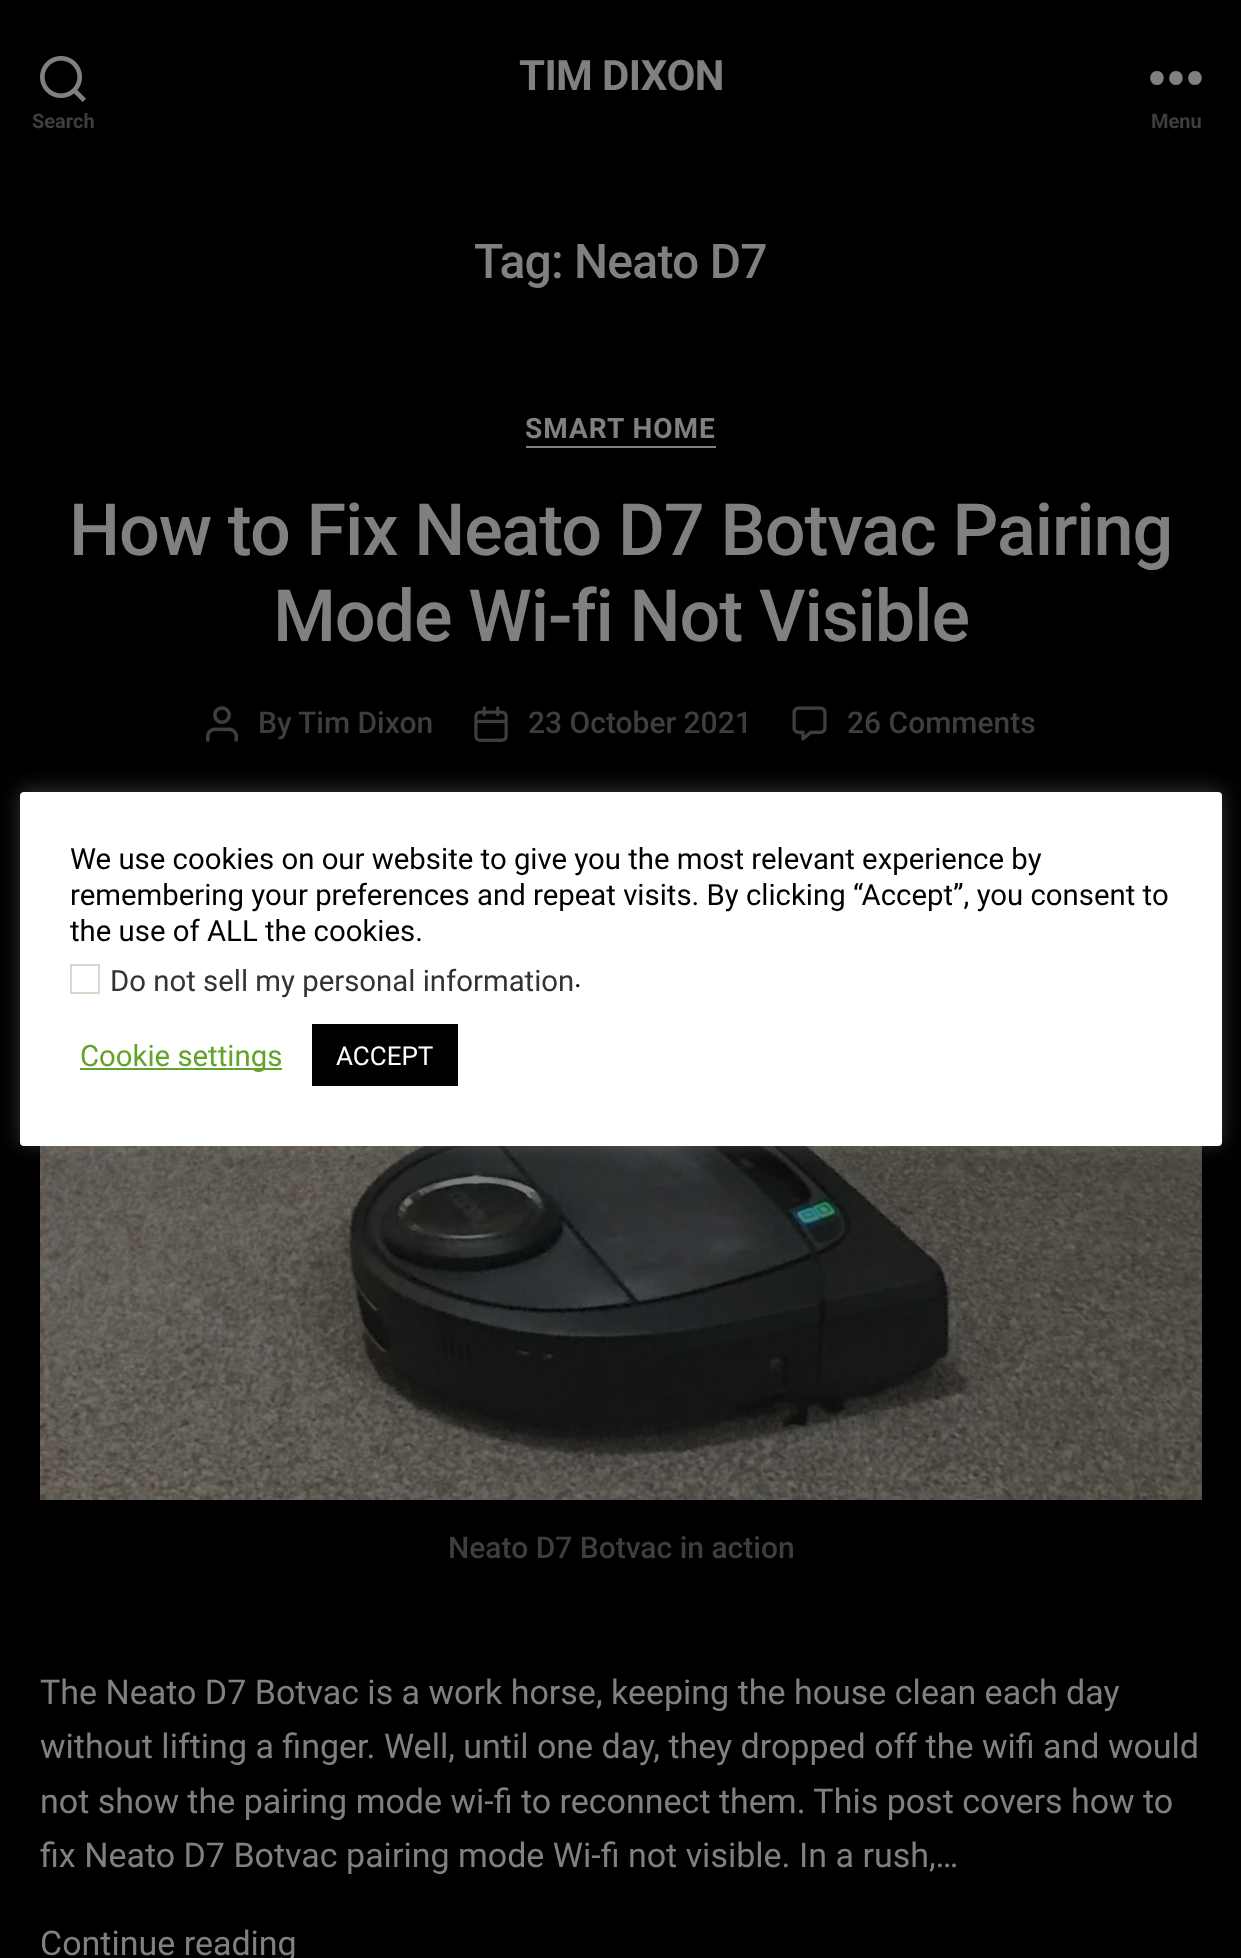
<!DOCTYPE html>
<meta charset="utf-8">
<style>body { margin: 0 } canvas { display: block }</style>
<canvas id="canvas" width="1241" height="1958"></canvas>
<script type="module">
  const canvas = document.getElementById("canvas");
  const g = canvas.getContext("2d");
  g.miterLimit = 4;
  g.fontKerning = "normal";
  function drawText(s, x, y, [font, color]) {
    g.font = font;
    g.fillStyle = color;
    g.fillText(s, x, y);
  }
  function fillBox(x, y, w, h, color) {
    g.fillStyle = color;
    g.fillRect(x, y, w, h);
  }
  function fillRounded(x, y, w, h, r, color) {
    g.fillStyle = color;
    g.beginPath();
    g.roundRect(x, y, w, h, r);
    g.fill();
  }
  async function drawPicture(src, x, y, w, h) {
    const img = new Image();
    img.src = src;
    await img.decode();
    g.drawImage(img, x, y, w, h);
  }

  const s1 = ["bold 42px Roboto", "#808080"];
  const s2 = ["bold 20px Roboto", "#3E3E3E"];
  const s3 = ["500 48px Roboto", "#808080"];
  const s4 = ["bold 28px Roboto", "#808080"];
  const s5 = ["500 72px Roboto", "#808080"];
  const s6 = ["500 30px Roboto", "#3E3E3E"];
  const s7 = ["34px Roboto", "#808080"];
  const s8 = ["29.35px Roboto", "#000000"];
  const s9 = ["29.35px Roboto", "#333333"];
  const s10 = ["29.35px Roboto", "#62A329"];
  const s11 = ["26px Roboto", "#FFFFFF"];

  fillBox(0, 0, 1241, 1958, "#000000");
  g.letterSpacing = "-0.6px";
  drawText("TIM DIXON", 519, 90, s1);
  await drawPicture("pic1.png", 40, 56, 46, 46);
  g.letterSpacing = "0px";
  drawText("Search", 32, 128, s2);
  g.fillStyle = "#808080";
  g.beginPath();
  g.moveTo(1157, 85);
  g.bezierCurveTo(1148, 85, 1148, 71, 1157, 71);
  g.bezierCurveTo(1166, 71, 1166, 85, 1157, 85);
  g.closePath();
  g.moveTo(1176, 85);
  g.bezierCurveTo(1167, 85, 1167, 71, 1176, 71);
  g.bezierCurveTo(1185, 71, 1185, 85, 1176, 85);
  g.closePath();
  g.moveTo(1195, 85);
  g.bezierCurveTo(1186, 85, 1186, 71, 1195, 71);
  g.bezierCurveTo(1204, 71, 1204, 85, 1195, 85);
  g.closePath();
  g.fill("evenodd");
  drawText("Menu", 1151, 128, s2);
  g.letterSpacing = "-0.75px";
  drawText("Tag: Neato D7", 474, 278, s3);
  fillBox(526, 446, 190, 2, "#808080");
  g.letterSpacing = "1px";
  drawText("SMART HOME", 525, 438, s4);
  g.letterSpacing = "-1.1px";
  drawText("How to Fix Neato D7 Botvac Pairing", 69, 555, s5);
  drawText("Mode Wi-fi Not Visible", 273, 641, s5);
  await drawPicture("pic2.png", 206, 706, 32, 36);
  g.letterSpacing = "0px";
  drawText("By", 258, 733, s6);
  drawText("Tim Dixon", 298, 733, s6);
  await drawPicture("pic3.png", 474, 706, 34, 36);
  drawText("23 October 2021", 528, 733, s6);
  await drawPicture("pic4.png", 792, 706, 35, 35);
  drawText("26 Comments", 847, 733, s6);
  await drawPicture("pic5.png", 40, 1146, 1162, 354);
  drawText("Neato D7 Botvac in action", 448, 1558, s6);
  drawText("The Neato D7 Botvac is a work horse, keeping the house clean each day", 40, 1704, s7);
  drawText("without lifting a finger. Well, until one day, they dropped off the wifi and would", 40, 1758, s7);
  drawText("not show the pairing mode wi-fi to reconnect them. This post covers how to", 40, 1813, s7);
  drawText("fix Neato D7 Botvac pairing mode Wi-fi not visible. In a rush,…", 40, 1867, s7);
  drawText("Continue reading", 40, 1955, s7);
  g.fillStyle = "rgba(172, 171, 171, 0.3)";
  g.filter = "blur(10px)";
  g.beginPath();
  g.roundRect(20, 790, 1202, 354, 4);
  g.fill();
  g.filter = "none";
  fillRounded(20, 792, 1202, 354, 4, "#FFFFFF");
  drawText("We use cookies on our website to give you the most relevant experience by", 70, 869, s8);
  drawText("remembering your preferences and repeat visits. By clicking “Accept”, you consent to", 70, 905, s8);
  drawText("the use of ALL the cookies.", 70, 941, s8);
  g.strokeStyle = "#DCD7CA";
  g.lineWidth = 2;
  g.strokeRect(71, 965, 28, 28);
  drawText("Do not sell my personal information", 110, 991, s9);
  drawText(".", 574, 987, s8);
  fillBox(80, 1068, 202, 2, "#62A329");
  drawText("Cookie settings", 80, 1066, s10);
  fillBox(312, 1024, 146, 62, "#000000");
  drawText("ACCEPT", 336, 1065, s11);
</script>
